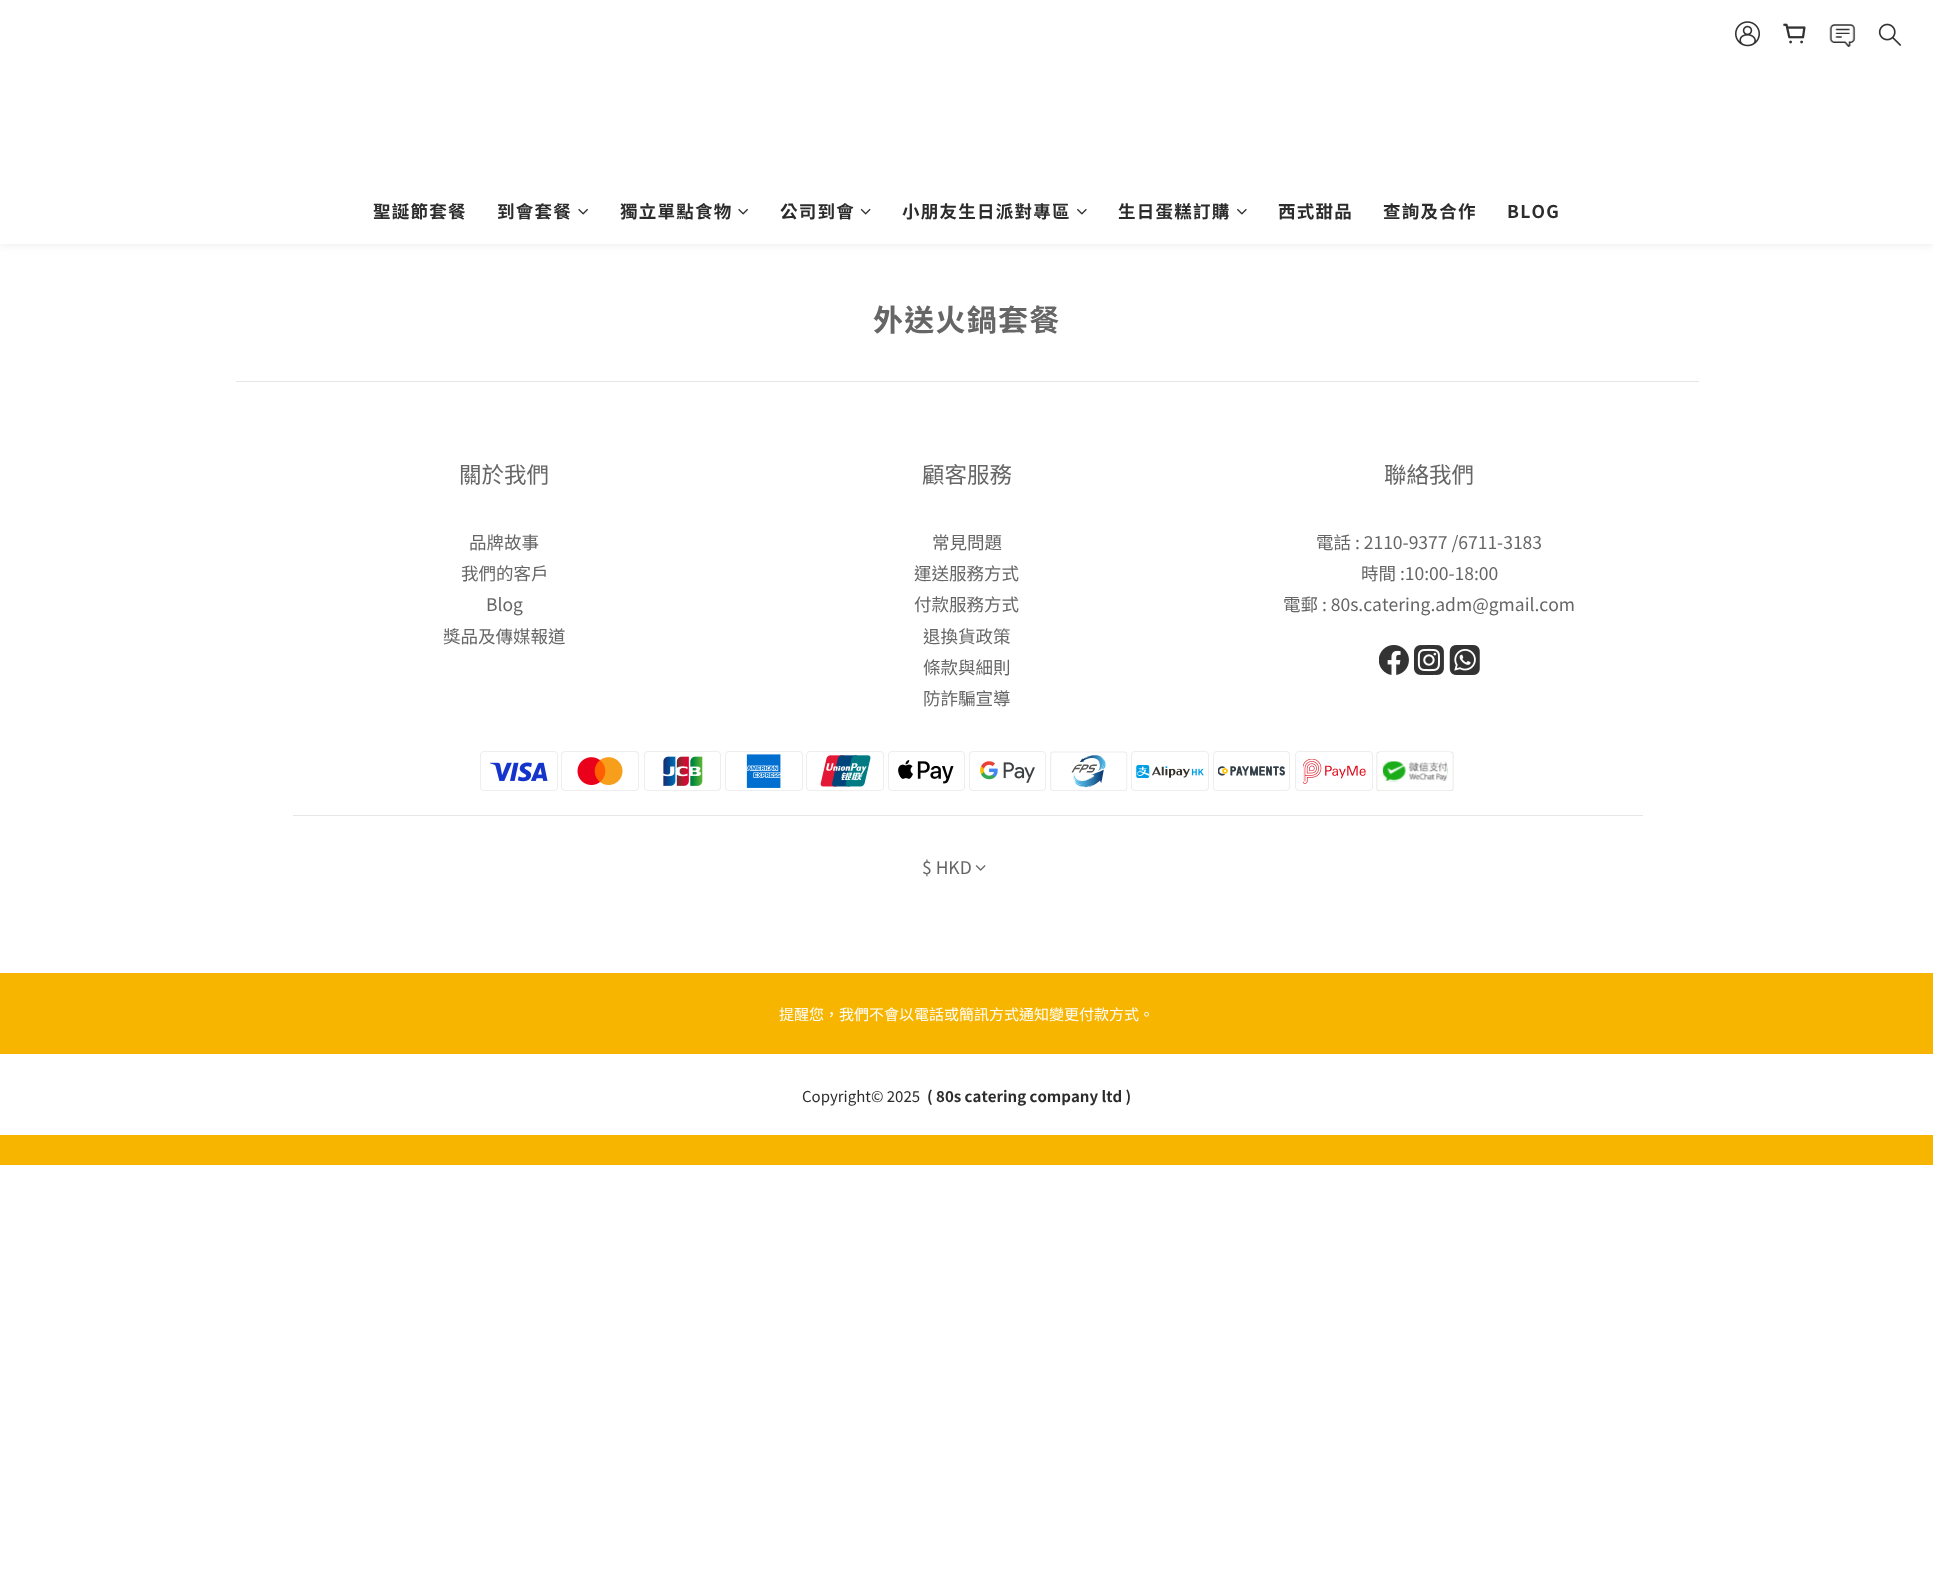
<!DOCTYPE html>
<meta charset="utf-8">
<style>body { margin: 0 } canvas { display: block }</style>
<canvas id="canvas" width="1933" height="1585"></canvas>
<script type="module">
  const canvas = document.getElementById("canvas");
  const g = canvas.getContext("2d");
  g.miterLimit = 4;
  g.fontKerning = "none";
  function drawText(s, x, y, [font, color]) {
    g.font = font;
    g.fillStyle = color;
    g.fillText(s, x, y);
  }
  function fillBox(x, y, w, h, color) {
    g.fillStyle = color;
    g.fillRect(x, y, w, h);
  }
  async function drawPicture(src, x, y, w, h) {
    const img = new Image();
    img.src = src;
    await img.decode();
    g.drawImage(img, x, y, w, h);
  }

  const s1 = ["bold 17.5px Noto Sans TC", "#2C2C2C"];
  const s2 = ["bold 30px Noto Sans TC", "#666666"];
  const s3 = ["22.5px Noto Sans TC", "#666666"];
  const s4 = ["17.5px Noto Sans TC", "#666666"];
  const s5 = ["15px Noto Sans TC", "#FFFFFF"];
  const s6 = ["15px Noto Sans TC", "#2C2C2C"];
  const s7 = ["bold 15px Noto Sans TC", "#2C2C2C"];

  fillBox(0, 0, 1933, 1585, "#FFFFFF");
  g.fillStyle = "rgba(0, 0, 0, 0.06)";
  g.filter = "blur(4px)";
  g.beginPath();
  g.rect(0, 3, 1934, 243);
  g.fill();
  g.filter = "none";
  fillBox(0, 0, 1933, 244, "#FFFFFF");
  await drawPicture("pic1.png", 1735, 21, 25, 26);
  await drawPicture("pic2.png", 1783, 23, 23, 21);
  await drawPicture("pic3.png", 1829, 24, 27, 23);
  await drawPicture("pic4.png", 1878, 23, 24, 23);
  g.letterSpacing = "1.25px";
  drawText("聖誕節套餐", 373, 218, s1);
  drawText("到會套餐", 497, 218, s1);
  await drawPicture("pic5.png", 578, 208, 10, 7);
  drawText("獨立單點食物", 620, 218, s1);
  await drawPicture("pic5.png", 738, 208, 10, 7);
  drawText("公司到會", 780, 218, s1);
  await drawPicture("pic6.png", 860, 208, 11, 7);
  drawText("小朋友生日派對專區", 902, 218, s1);
  await drawPicture("pic7.png", 1077, 208, 10, 7);
  drawText("生日蛋糕訂購", 1118, 218, s1);
  await drawPicture("pic7.png", 1237, 208, 10, 7);
  drawText("西式甜品", 1278, 218, s1);
  drawText("查詢及合作", 1383, 218, s1);
  drawText("BLOG", 1507, 218, s1);
  drawText("外送火鍋套餐", 873, 331, s2);
  fillBox(236, 381, 1463, 1, "#E6E6E6");
  g.letterSpacing = "0px";
  drawText("關於我們", 459, 483, s3);
  drawText("品牌故事", 469, 549, s4);
  drawText("我們的客戶", 461, 580, s4);
  drawText("Blog", 486, 611, s4);
  drawText("獎品及傳媒報道", 443, 643, s4);
  drawText("顧客服務", 922, 483, s3);
  drawText("常見問題", 932, 549, s4);
  drawText("運送服務方式", 914, 580, s4);
  drawText("付款服務方式", 914, 611, s4);
  drawText("退換貨政策", 923, 643, s4);
  drawText("條款與細則", 923, 674, s4);
  drawText("防詐騙宣導", 923, 705, s4);
  drawText("聯絡我們", 1384, 483, s3);
  drawText("電話 : 2110-9377 /6711-3183", 1316, 549, s4);
  drawText("時間 :10:00-18:00", 1361, 580, s4);
  drawText("電郵 : 80s.catering.adm@gmail.com", 1283, 611, s4);
  await drawPicture("pic8.png", 1379, 645, 30, 30);
  await drawPicture("pic9.png", 1414, 645, 30, 30);
  await drawPicture("pic10.png", 1449, 645, 31, 30);
  await drawPicture("pic11.png", 480, 751, 78, 40);
  await drawPicture("pic12.png", 561, 751, 78, 40);
  await drawPicture("pic13.png", 644, 751, 77, 40);
  await drawPicture("pic14.png", 725, 751, 78, 40);
  await drawPicture("pic15.png", 806, 751, 78, 40);
  await drawPicture("pic16.png", 888, 751, 77, 40);
  await drawPicture("pic17.png", 969, 751, 77, 40);
  await drawPicture("pic18.png", 1050, 751, 78, 40);
  await drawPicture("pic19.png", 1131, 751, 78, 40);
  await drawPicture("pic20.png", 1213, 751, 77, 40);
  await drawPicture("pic21.png", 1295, 751, 78, 40);
  await drawPicture("pic22.png", 1376, 751, 78, 40);
  fillBox(293, 815, 1350, 1, "#E6E6E6");
  drawText("$ HKD", 922, 874, s4);
  await drawPicture("pic23.png", 975, 865, 11, 6);
  fillBox(0, 973, 1933, 81, "#F7B500");
  drawText("提醒您，我們不會以電話或簡訊方式通知變更付款方式。", 779, 1020, s5);
  drawText("Copyright© 2025", 802, 1102, s6);
  drawText("( 80s catering company ltd )", 927, 1102, s7);
  fillBox(0, 1135, 1933, 30, "#F7B500");
</script>
